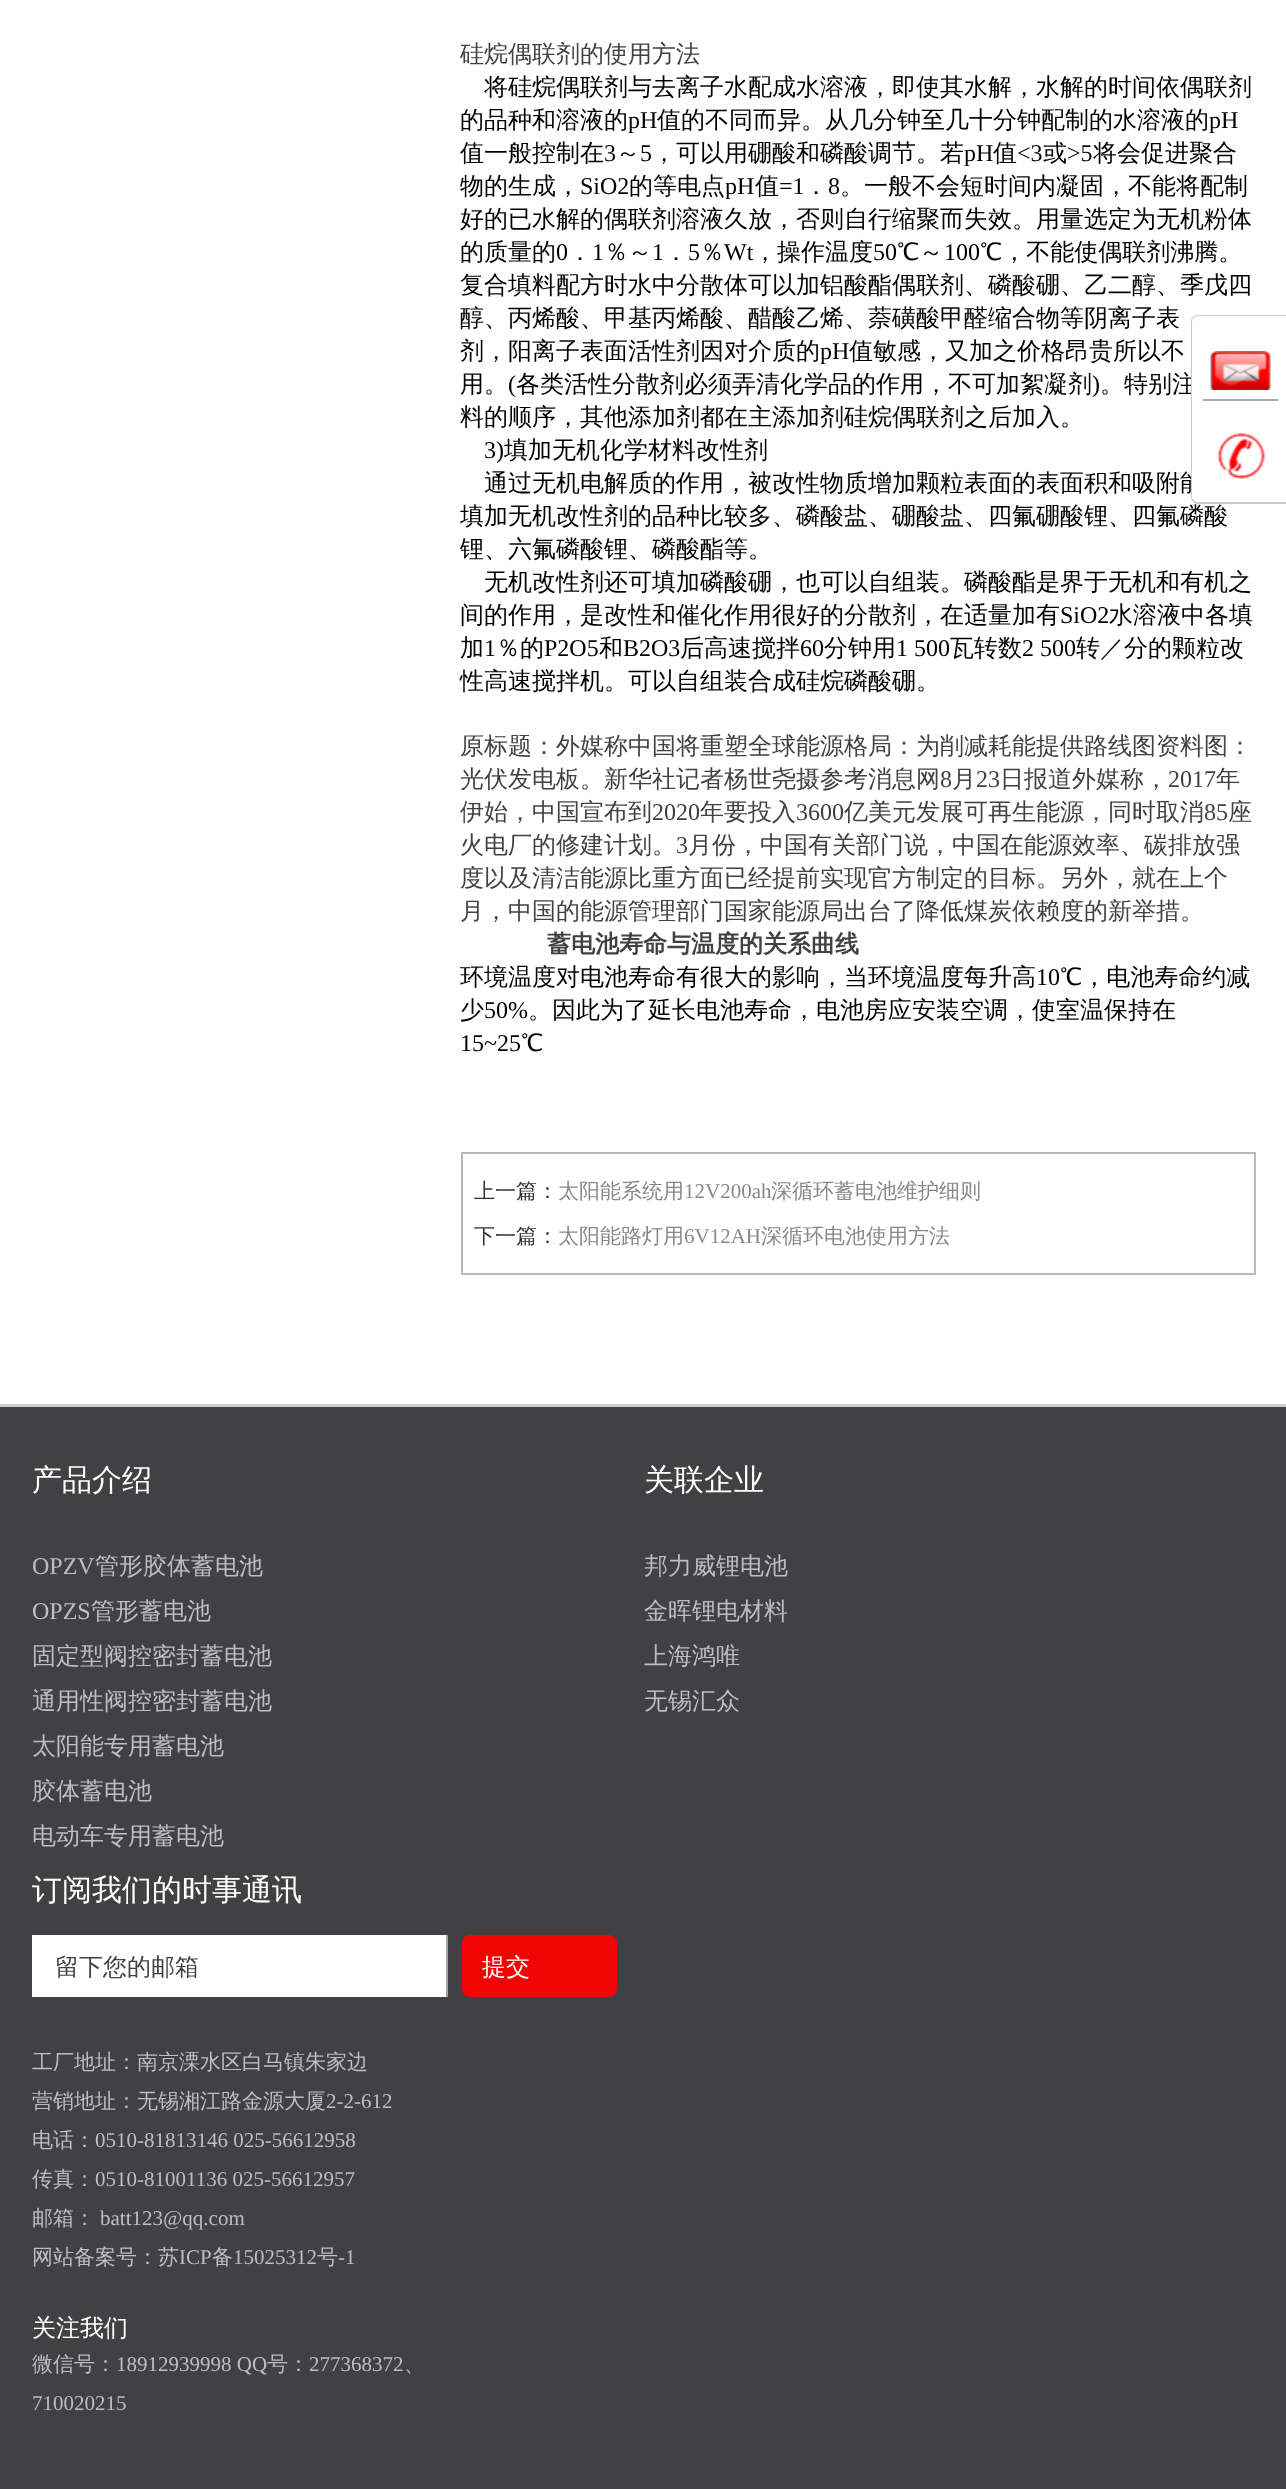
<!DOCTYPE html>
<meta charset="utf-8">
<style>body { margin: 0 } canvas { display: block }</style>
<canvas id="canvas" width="1286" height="2489"></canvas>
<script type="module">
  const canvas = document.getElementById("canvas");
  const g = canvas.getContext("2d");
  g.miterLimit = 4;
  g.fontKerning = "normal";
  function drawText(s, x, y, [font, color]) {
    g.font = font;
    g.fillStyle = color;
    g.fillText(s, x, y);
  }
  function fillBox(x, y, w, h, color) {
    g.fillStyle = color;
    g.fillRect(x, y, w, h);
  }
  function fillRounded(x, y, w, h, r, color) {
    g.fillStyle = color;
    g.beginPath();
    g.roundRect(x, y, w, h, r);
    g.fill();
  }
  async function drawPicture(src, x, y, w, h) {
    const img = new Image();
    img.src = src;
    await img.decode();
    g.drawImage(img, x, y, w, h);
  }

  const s1 = ["500 24px WenQuanYi Zen Hei", "#414042"];
  const s2 = ["500 24px WenQuanYi Zen Hei", "#000000"];
  const s3 = ["24px Liberation Serif", "#000000"];
  const s4 = ["24px Liberation Serif", "#414042"];
  const s5 = ["bold 24px WenQuanYi Zen Hei", "#414042"];
  const s6 = ["500 21px WenQuanYi Zen Hei", "#333333"];
  const s7 = ["500 21px WenQuanYi Zen Hei", "#888888"];
  const s8 = ["21px Liberation Serif", "#888888"];
  const s9 = ["500 30px WenQuanYi Zen Hei", "#FFFFFF"];
  const s10 = ["24px Liberation Serif", "#BCBEC0"];
  const s11 = ["500 24px WenQuanYi Zen Hei", "#BCBEC0"];
  const s12 = ["500 24px WenQuanYi Zen Hei", "#FFFFFF"];
  const s13 = ["500 21px WenQuanYi Zen Hei", "#BCBEC0"];
  const s14 = ["21px Liberation Serif", "#BCBEC0"];

  fillBox(0, 0, 1286, 2489, "#FFFFFF");
  drawText("硅烷偶联剂的使用方法", 460, 62, s1);
  drawText("将硅烷偶联剂与去离子水配成水溶液，即使其水解，水解的时间依偶联剂", 484, 95, s2);
  drawText("的品种和溶液的", 460, 128, s2);
  drawText("pH", 628, 128, s3);
  drawText("值的不同而异。从几分钟至几十分钟配制的水溶液的", 657, 128, s2);
  drawText("pH", 1209, 128, s3);
  drawText("值一般控制在", 460, 161, s2);
  drawText("3", 604, 161, s3);
  drawText("～", 616, 161, s2);
  drawText("5", 640, 161, s3);
  drawText("，可以用硼酸和磷酸调节。若", 652, 161, s2);
  drawText("pH", 964, 161, s3);
  drawText("值", 993, 161, s2);
  drawText("<3", 1017, 161, s3);
  drawText("或", 1043, 161, s2);
  drawText(">5", 1067, 161, s3);
  drawText("将会促进聚合", 1093, 161, s2);
  drawText("物的生成，", 460, 194, s2);
  drawText("SiO2", 580, 194, s3);
  drawText("的等电点", 629, 194, s2);
  drawText("pH", 725, 194, s3);
  drawText("值", 755, 194, s2);
  drawText("=1", 779, 194, s3);
  drawText("．", 804, 194, s2);
  drawText("8", 828, 194, s3);
  drawText("。一般不会短时间内凝固，不能将配制", 840, 194, s2);
  drawText("好的已水解的偶联剂溶液久放，否则自行缩聚而失效。用量选定为无机粉体", 460, 227, s2);
  drawText("的质量的", 460, 260, s2);
  drawText("0", 556, 260, s3);
  drawText("．", 568, 260, s2);
  drawText("1", 592, 260, s3);
  drawText("％～", 604, 260, s2);
  drawText("1", 652, 260, s3);
  drawText("．", 664, 260, s2);
  drawText("5", 688, 260, s3);
  drawText("％", 700, 260, s2);
  drawText("Wt", 724, 260, s3);
  drawText("，操作温度", 753, 260, s2);
  drawText("50", 873, 260, s3);
  drawText("℃～", 897, 260, s2);
  drawText("100", 944, 260, s3);
  drawText("℃，不能使偶联剂沸腾。", 980, 260, s2);
  drawText("复合填料配方时水中分散体可以加铝酸酯偶联剂、磷酸硼、乙二醇、季戊四", 460, 293, s2);
  drawText("醇、丙烯酸、甲基丙烯酸、醋酸乙烯、萘磺酸甲醛缩合物等阴离子表", 460, 326, s2);
  drawText("剂，阳离子表面活性剂因对介质的", 460, 359, s2);
  drawText("pH", 820, 359, s3);
  drawText("值敏感，又加之价格昂贵所以不", 849, 359, s2);
  drawText("用。", 460, 392, s2);
  drawText("(", 508, 392, s3);
  drawText("各类活性分散剂必须弄清化学品的作用，不可加絮凝剂", 516, 392, s2);
  drawText(")", 1092, 392, s3);
  drawText("。特别注", 1100, 392, s2);
  drawText("料的顺序，其他添加剂都在主添加剂硅烷偶联剂之后加入。", 460, 425, s2);
  drawText("3)", 484, 458, s3);
  drawText("填加无机化学材料改性剂", 504, 458, s2);
  drawText("通过无机电解质的作用，被改性物质增加颗粒表面的表面积和吸附能", 484, 491, s2);
  drawText("填加无机改性剂的品种比较多、磷酸盐、硼酸盐、四氟硼酸锂、四氟磷酸", 460, 524, s2);
  drawText("锂、六氟磷酸锂、磷酸酯等。", 460, 557, s2);
  drawText("无机改性剂还可填加磷酸硼，也可以自组装。磷酸酯是界于无机和有机之", 484, 590, s2);
  drawText("间的作用，是改性和催化作用很好的分散剂，在适量加有", 460, 623, s2);
  drawText("SiO2", 1060, 623, s3);
  drawText("水溶液中各填", 1109, 623, s2);
  drawText("加", 460, 656, s2);
  drawText("1", 484, 656, s3);
  drawText("％的", 496, 656, s2);
  drawText("P2O5", 544, 656, s3);
  drawText("和", 599, 656, s2);
  drawText("B2O3", 623, 656, s3);
  drawText("后高速搅拌", 680, 656, s2);
  drawText("60", 800, 656, s3);
  drawText("分钟用", 824, 656, s2);
  drawText("1 500", 896, 656, s3);
  drawText("瓦转数", 950, 656, s2);
  drawText("2 500", 1022, 656, s3);
  drawText("转／分的颗粒改", 1076, 656, s2);
  drawText("性高速搅拌机。可以自组装合成硅烷磷酸硼。", 460, 689, s2);
  drawText("原标题：外媒称中国将重塑全球能源格局：为削减耗能提供路线图资料图：", 460, 754, s1);
  drawText("光伏发电板。新华社记者杨世尧摄参考消息网", 460, 787, s1);
  drawText("8", 940, 787, s4);
  drawText("月", 952, 787, s1);
  drawText("23", 976, 787, s4);
  drawText("日报道外媒称，", 1000, 787, s1);
  drawText("2017", 1168, 787, s4);
  drawText("年", 1216, 787, s1);
  drawText("伊始，中国宣布到", 460, 820, s1);
  drawText("2020", 652, 820, s4);
  drawText("年要投入", 700, 820, s1);
  drawText("3600", 796, 820, s4);
  drawText("亿美元发展可再生能源，同时取消", 844, 820, s1);
  drawText("85", 1204, 820, s4);
  drawText("座", 1228, 820, s1);
  drawText("火电厂的修建计划。", 460, 853, s1);
  drawText("3", 676, 853, s4);
  drawText("月份，中国有关部门说，中国在能源效率、碳排放强", 688, 853, s1);
  drawText("度以及清洁能源比重方面已经提前实现官方制定的目标。另外，就在上个", 460, 886, s1);
  drawText("月，中国的能源管理部门国家能源局出台了降低煤炭依赖度的新举措。", 460, 919, s1);
  drawText("蓄电池寿命与温度的关系曲线", 547, 952, s5);
  drawText("环境温度对电池寿命有很大的影响，当环境温度每升高", 460, 985, s2);
  drawText("10", 1036, 985, s3);
  drawText("℃，电池寿命约减", 1060, 985, s2);
  drawText("少", 460, 1018, s2);
  drawText("50%", 484, 1018, s3);
  drawText("。因此为了延长电池寿命，电池房应安装空调，使室温保持在", 528, 1018, s2);
  drawText("15~25", 460, 1051, s3);
  drawText("℃", 521, 1051, s2);
  g.strokeStyle = "#B9B9B9";
  g.lineWidth = 2;
  g.strokeRect(462, 1153, 793, 121);
  drawText("上一篇：", 474, 1198, s6);
  drawText("太阳能系统用", 558, 1198, s7);
  drawText("12V200ah", 684, 1198, s8);
  drawText("深循环蓄电池维护细则", 771, 1198, s7);
  drawText("下一篇：", 474, 1243, s6);
  drawText("太阳能路灯用", 558, 1243, s7);
  drawText("6V12AH", 684, 1243, s8);
  drawText("深循环电池使用方法", 761, 1243, s7);
  g.fillStyle = "#FFFFFF";
  g.beginPath();
  g.moveTo(1199, 315);
  g.lineTo(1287, 315);
  g.lineTo(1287, 504);
  g.lineTo(1199, 504);
  g.bezierCurveTo(1194.5, 504, 1191, 500.5, 1191, 496);
  g.lineTo(1191, 323);
  g.bezierCurveTo(1191, 318.5, 1194.5, 315, 1199, 315);
  g.closePath();
  g.fill();
  g.fillStyle = "#CBCBCB";
  g.beginPath();
  g.moveTo(1198, 315);
  g.lineTo(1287, 315);
  g.lineTo(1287, 504);
  g.lineTo(1198, 504);
  g.bezierCurveTo(1194, 504, 1191, 501, 1191, 496);
  g.lineTo(1191, 322);
  g.bezierCurveTo(1191, 318, 1194, 315, 1198, 315);
  g.closePath();
  g.moveTo(1198, 316);
  g.lineTo(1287, 316);
  g.lineTo(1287, 502);
  g.lineTo(1198, 502);
  g.bezierCurveTo(1195, 502, 1192, 500, 1192, 496);
  g.lineTo(1192, 322);
  g.bezierCurveTo(1192, 319, 1195, 316, 1198, 316);
  g.closePath();
  g.fill("evenodd");
  fillBox(1203, 399, 75, 2, "#AAAAAA");
  await drawPicture("pic1.png", 1210, 351, 61, 39);
  await drawPicture("pic2.png", 1217, 433, 48, 46);
  fillBox(0, 1407, 1286, 1082, "#414042");
  fillBox(0, 1404, 1286, 3, "#D0D0D0");
  drawText("产品介绍", 32, 1490, s9);
  drawText("OPZV", 32, 1574, s10);
  drawText("管形胶体蓄电池", 95, 1574, s11);
  drawText("OPZS", 32, 1619, s10);
  drawText("管形蓄电池", 91, 1619, s11);
  drawText("固定型阀控密封蓄电池", 32, 1664, s11);
  drawText("通用性阀控密封蓄电池", 32, 1709, s11);
  drawText("太阳能专用蓄电池", 32, 1754, s11);
  drawText("胶体蓄电池", 32, 1799, s11);
  drawText("电动车专用蓄电池", 32, 1844, s11);
  drawText("关联企业", 644, 1490, s9);
  drawText("邦力威锂电池", 644, 1574, s11);
  drawText("金晖锂电材料", 644, 1619, s11);
  drawText("上海鸿唯", 644, 1664, s11);
  drawText("无锡汇众", 644, 1709, s11);
  drawText("订阅我们的时事通讯", 32, 1900, s9);
  fillBox(32, 1935, 414, 62, "#FFFFFF");
  fillBox(446, 1935, 2, 62, "#A6A5A6");
  drawText("留下您的邮箱", 55, 1975, s1);
  fillRounded(462, 1935, 155, 62, 8, "#F20404");
  drawText("提交", 482, 1975, s12);
  drawText("工厂地址：南京溧水区白马镇朱家边", 32, 2069, s13);
  drawText("营销地址：无锡湘江路金源大厦", 32, 2108, s13);
  drawText("2-2-612", 326, 2108, s14);
  drawText("电话：", 32, 2147, s13);
  drawText("0510-81813146 025-56612958", 95, 2147, s14);
  drawText("传真：", 32, 2186, s13);
  drawText("0510-81001136 025-56612957", 95, 2186, s14);
  drawText("邮箱：", 32, 2225, s13);
  drawText("batt123@qq.com", 100, 2225, s14);
  drawText("网站备案号：苏", 32, 2264, s13);
  drawText("ICP", 179, 2264, s14);
  drawText("备", 212, 2264, s13);
  drawText("15025312", 233, 2264, s14);
  drawText("号", 317, 2264, s13);
  drawText("-1", 338, 2264, s14);
  drawText("关注我们", 32, 2336, s12);
  drawText("微信号：", 32, 2371, s13);
  drawText("18912939998 QQ", 116, 2371, s14);
  drawText("号：", 267, 2371, s13);
  drawText("277368372", 309, 2371, s14);
  drawText("、", 404, 2371, s13);
  drawText("710020215", 32, 2410, s14);
</script>
